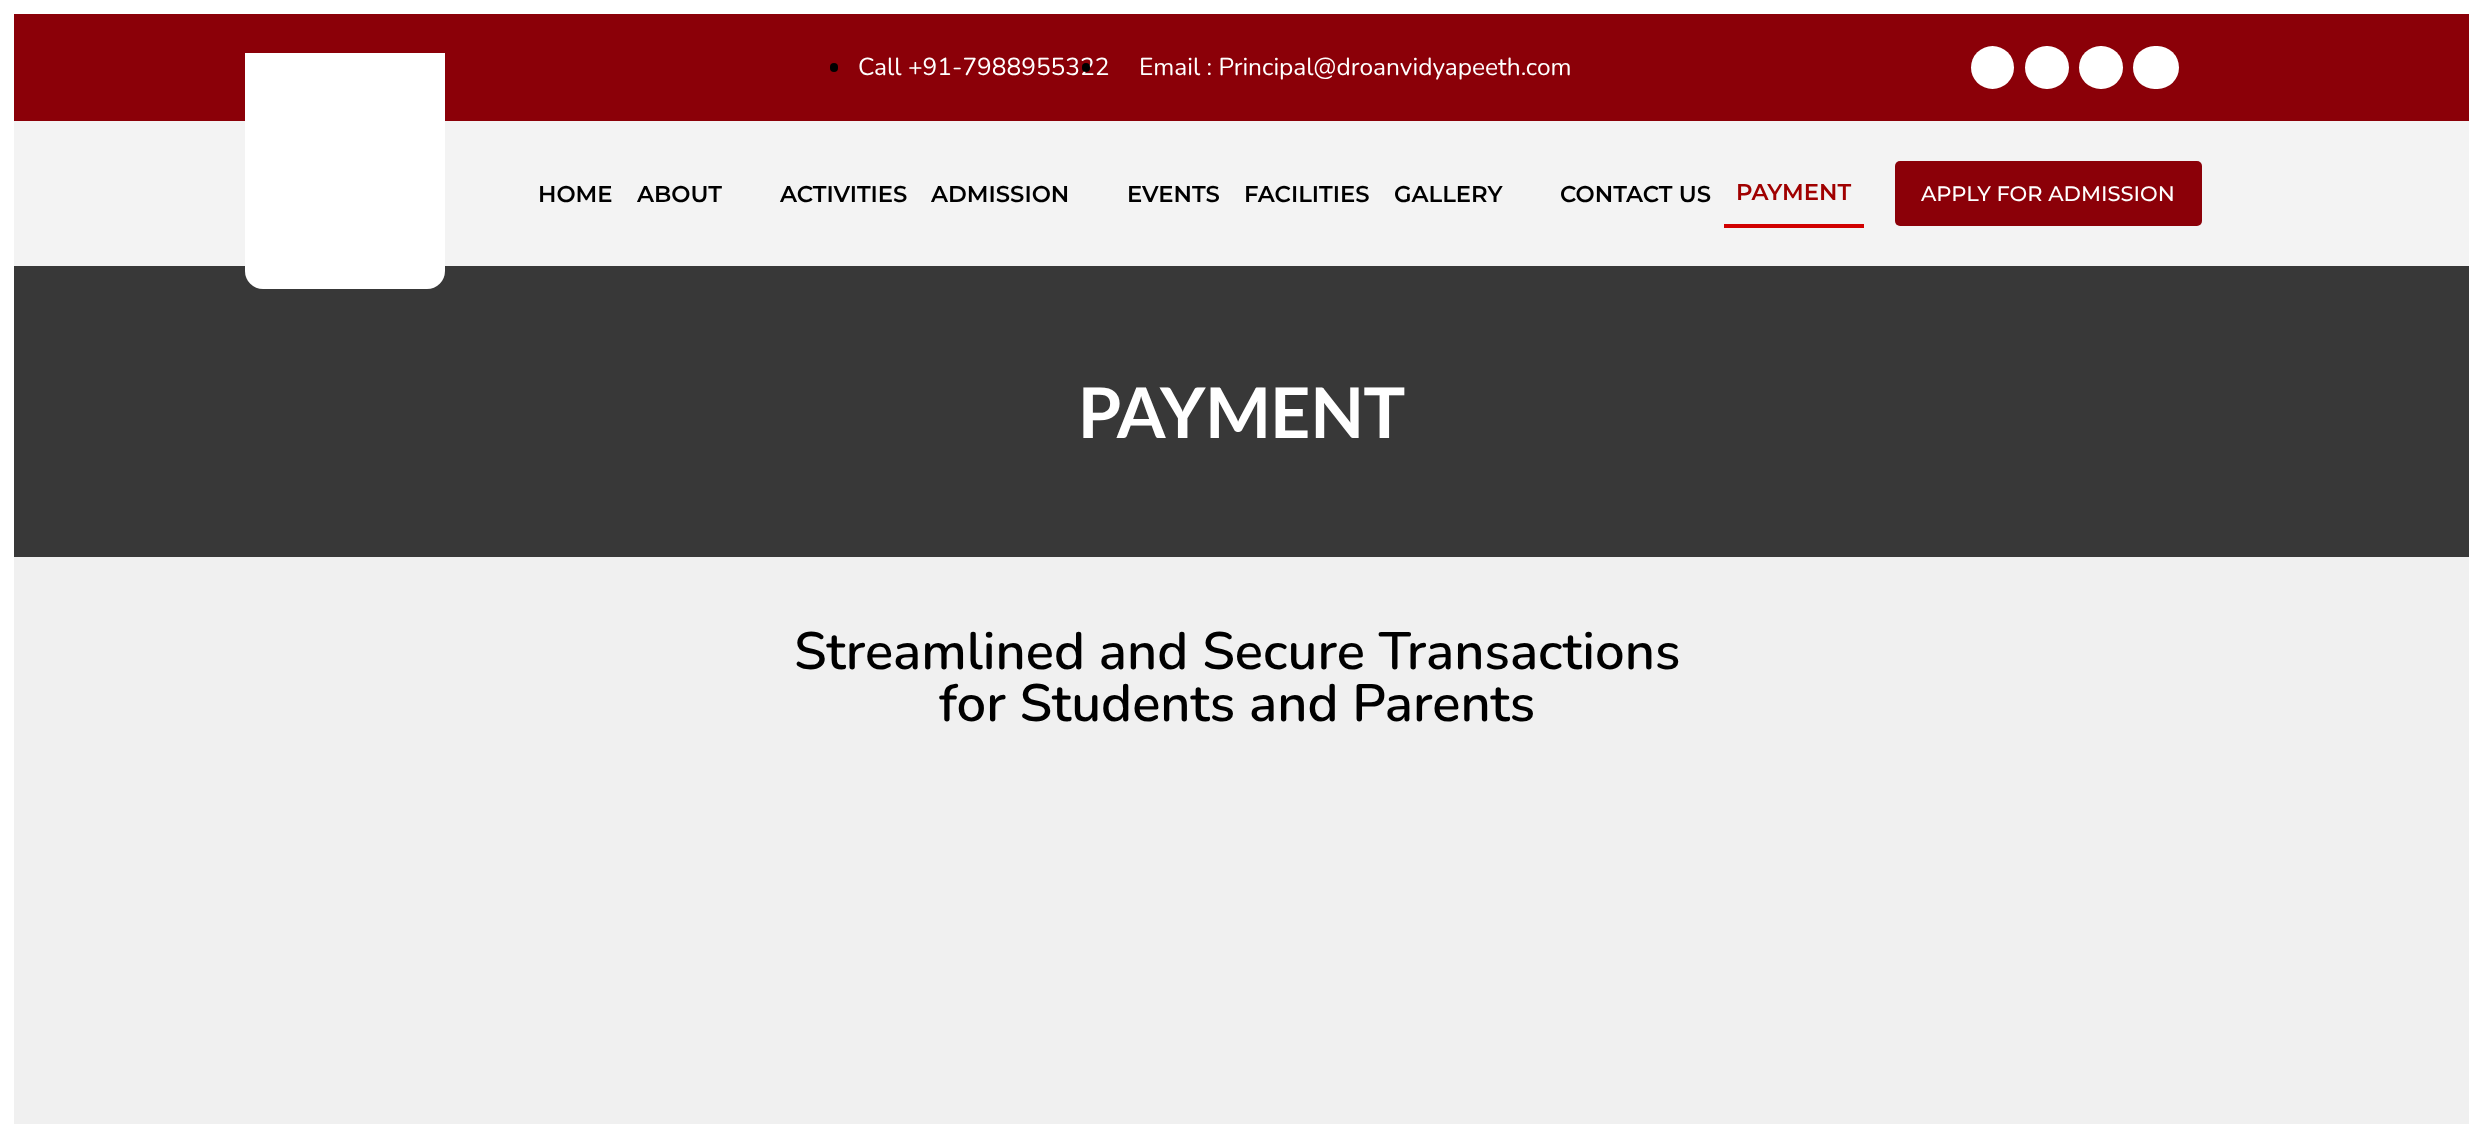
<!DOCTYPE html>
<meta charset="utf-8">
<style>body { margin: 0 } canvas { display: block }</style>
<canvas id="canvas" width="2483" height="1124"></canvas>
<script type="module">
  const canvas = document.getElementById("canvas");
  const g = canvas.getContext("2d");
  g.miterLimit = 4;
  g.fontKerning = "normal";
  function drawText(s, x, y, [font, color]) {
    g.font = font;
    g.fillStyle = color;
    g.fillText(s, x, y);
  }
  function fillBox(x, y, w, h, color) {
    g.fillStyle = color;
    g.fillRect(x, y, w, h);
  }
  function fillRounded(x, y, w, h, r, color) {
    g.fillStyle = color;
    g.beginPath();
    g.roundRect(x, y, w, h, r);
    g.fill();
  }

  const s1 = ["24.5px Nunito", "#FFFFFF"];
  const s2 = ["600 22.75px Montserrat", "#000000"];
  const s3 = ["600 22.75px Montserrat", "#A00000"];
  const s4 = ["500 21px Montserrat", "#FFFFFF"];
  const s5 = ["bold 70px Lato", "#FFFFFF"];
  const s6 = ["600 52.5px Nunito", "#000000"];

  fillBox(0, 0, 2483, 1124, "#FFFFFF");
  fillBox(14, 14, 2455, 107, "#8B0008");
  fillRounded(830, 63, 8, 9, 4, "#000000");
  drawText("Call +91-7988955322", 858, 75, s1);
  fillRounded(1082, 63, 8, 9, 4, "#000000");
  drawText("Email : Principal@droanvidyapeeth.com", 1139, 75, s1);
  g.beginPath();
  g.arc(1992.5, 67.5, 21.5, 0, Math.PI * 2);
  g.fill();
  fillRounded(2025, 46, 44, 43, 21.5, "#FFFFFF");
  fillRounded(2079, 46, 44, 43, 21.5, "#FFFFFF");
  fillRounded(2133, 46, 46, 43, 21.5, "#FFFFFF");
  fillBox(14, 121, 2455, 145, "#F3F3F3");
  fillBox(14, 266, 2455, 291, "#383838");
  g.fillStyle = "#FFFFFF";
  g.beginPath();
  g.roundRect(245, 53, 200, 236, [0, 0, 18, 18]);
  g.fill();
  drawText("HOME", 538, 202, s2);
  drawText("ABOUT", 637, 202, s2);
  drawText("ACTIVITIES", 780, 202, s2);
  drawText("ADMISSION", 931, 202, s2);
  drawText("EVENTS", 1127, 202, s2);
  drawText("FACILITIES", 1244, 202, s2);
  drawText("GALLERY", 1394, 202, s2);
  drawText("CONTACT US", 1560, 202, s2);
  fillBox(1724, 224, 140, 4, "#D10000");
  drawText("PAYMENT", 1736, 200, s3);
  fillRounded(1895, 161, 307, 65, 5, "#8B0008");
  drawText("APPLY FOR ADMISSION", 1921, 201, s4);
  drawText("PAYMENT", 1078, 438, s5);
  fillBox(14, 557, 2455, 567, "#F0F0F0");
  drawText("Streamlined and Secure Transactions", 794, 669, s6);
  drawText("for Students and Parents", 939, 721, s6);
</script>
